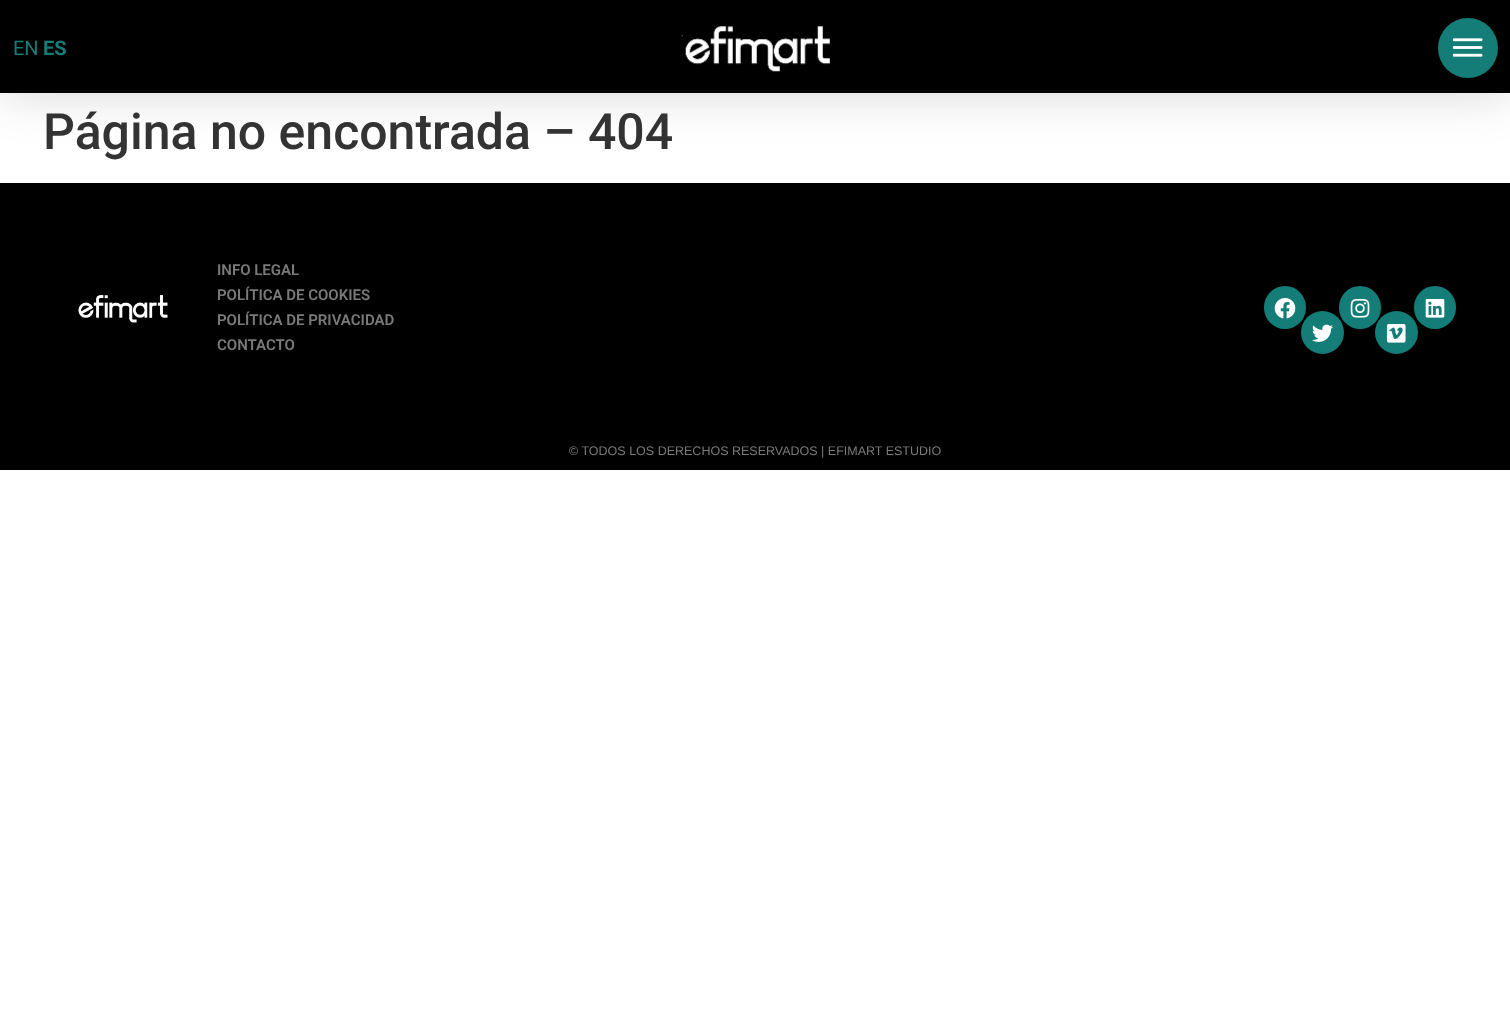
<!DOCTYPE html>
<meta charset="utf-8">
<style>body { margin: 0 } canvas { display: block }</style>
<canvas id="canvas" width="1510" height="1016"></canvas>
<script type="module">
  const canvas = document.getElementById("canvas");
  const g = canvas.getContext("2d");
  g.miterLimit = 4;
  g.fontKerning = "normal";
  function drawText(s, x, y, [font, color]) {
    g.font = font;
    g.fillStyle = color;
    g.fillText(s, x, y);
  }
  function fillBox(x, y, w, h, color) {
    g.fillStyle = color;
    g.fillRect(x, y, w, h);
  }
  function fillRounded(x, y, w, h, r, color) {
    g.fillStyle = color;
    g.beginPath();
    g.roundRect(x, y, w, h, r);
    g.fill();
  }
  async function drawPicture(src, x, y, w, h) {
    const img = new Image();
    img.src = src;
    await img.decode();
    g.drawImage(img, x, y, w, h);
  }

  const s1 = ["20px Roboto", "#147D78"];
  const s2 = ["bold 20px Roboto", "#147D78"];
  const s3 = ["500 50px Roboto", "#333333"];
  const s4 = ["600 15px Roboto", "#7A7A7A"];
  const s5 = ["12.5px Liberation Sans", "#7A7A7A"];

  fillBox(0, 0, 1510, 1016, "#FFFFFF");
  g.fillStyle = "rgba(0, 0, 0, 0.16)";
  g.filter = "blur(25px)";
  g.beginPath();
  g.rect(0, 0, 1510, 93);
  g.fill();
  g.filter = "none";
  fillBox(0, 0, 1510, 93, "#000000");
  drawText("EN", 13, 55, s1);
  drawText("ES", 43, 55, s2);
  await drawPicture("pic1.png", 681, 26, 149, 46);
  g.beginPath();
  g.arc(1468, 48, 30, 0, Math.PI * 2);
  g.fill();
  await drawPicture("pic2.png", 1453, 38, 30, 19);
  drawText("Página no encontrada – 404", 43, 149, s3);
  fillBox(0, 183, 1510, 287, "#000000");
  await drawPicture("pic3.png", 76, 295, 92, 28);
  drawText("INFO LEGAL", 217, 275, s4);
  drawText("POLÍTICA DE COOKIES", 217, 300, s4);
  drawText("POLÍTICA DE PRIVACIDAD", 217, 325, s4);
  drawText("CONTACTO", 217, 350, s4);
  fillRounded(1264, 286, 42, 43, 21, "#147D78");
  await drawPicture("pic4.png", 1274, 298, 22, 21);
  g.beginPath();
  g.arc(1322.5, 332.5, 21.5, 0, Math.PI * 2);
  g.fill();
  await drawPicture("pic5.png", 1312, 324, 21, 18);
  fillRounded(1339, 286, 42, 43, 21, "#147D78");
  await drawPicture("pic6.png", 1350, 298, 20, 20);
  g.beginPath();
  g.arc(1396.5, 332.5, 21.5, 0, Math.PI * 2);
  g.fill();
  await drawPicture("pic7.png", 1386, 324, 20, 19);
  fillRounded(1414, 286, 42, 43, 21, "#147D78");
  await drawPicture("pic8.png", 1425, 299, 20, 19);
  drawText("© TODOS LOS DERECHOS RESERVADOS | EFIMART ESTUDIO", 569, 455, s5);
</script>
